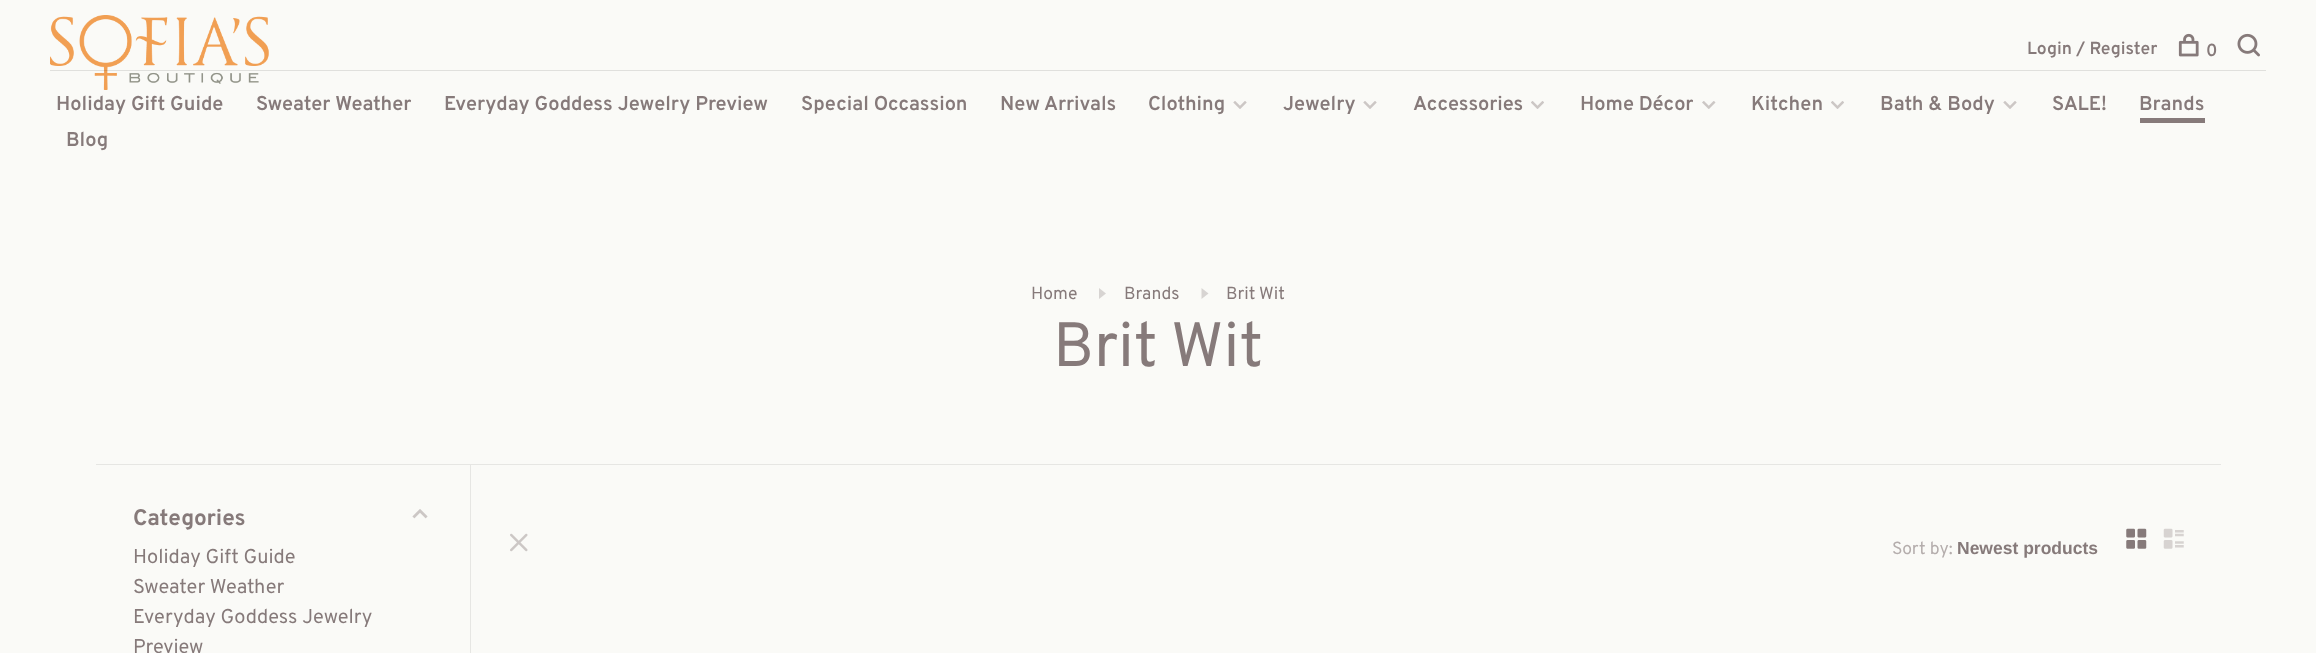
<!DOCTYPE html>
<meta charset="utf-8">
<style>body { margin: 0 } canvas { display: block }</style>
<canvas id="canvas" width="2316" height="653"></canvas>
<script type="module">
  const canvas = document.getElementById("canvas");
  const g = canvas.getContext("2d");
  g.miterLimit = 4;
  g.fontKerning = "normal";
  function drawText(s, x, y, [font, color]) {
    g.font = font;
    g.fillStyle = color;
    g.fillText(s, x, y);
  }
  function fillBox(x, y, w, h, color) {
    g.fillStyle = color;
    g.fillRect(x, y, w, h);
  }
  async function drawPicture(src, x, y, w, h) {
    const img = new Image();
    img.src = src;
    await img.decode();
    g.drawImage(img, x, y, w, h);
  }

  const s1 = ["600 17.5px Overpass", "#867A7A"];
  const s2 = ["600 20px Overpass", "#867A7A"];
  const s3 = ["17.5px Overpass", "#867A7A"];
  const s4 = ["62.5px Overpass", "#867A7A"];
  const s5 = ["bold 22.5px Overpass", "#867A7A"];
  const s6 = ["20px Overpass", "#867A7A"];
  const s7 = ["17.5px Overpass", "#B4ADAC"];
  const s8 = ["bold 17.5px Liberation Sans", "#867A7A"];

  fillBox(0, 0, 2316, 653, "#FAFAF7");
  await drawPicture("pic1.png", 50, 15, 219, 75);
  drawText("Login / Register", 2027, 54, s1);
  await drawPicture("pic2.png", 2178, 33, 21, 24);
  drawText("0", 2206, 56, s1);
  await drawPicture("pic3.png", 2237, 33, 23, 24);
  fillBox(50, 70, 2216, 1, "rgba(0, 0, 0, 0.1)");
  drawText("Holiday Gift Guide", 56, 110, s2);
  drawText("Sweater Weather", 256, 110, s2);
  drawText("Everyday Goddess Jewelry Preview", 444, 110, s2);
  drawText("Special Occassion", 801, 110, s2);
  drawText("New Arrivals", 1000, 110, s2);
  drawText("Clothing", 1148, 110, s2);
  await drawPicture("pic4.png", 1233, 101, 14, 8);
  drawText("Jewelry", 1283, 110, s2);
  await drawPicture("pic4.png", 1363, 101, 14, 8);
  drawText("Accessories", 1413, 110, s2);
  await drawPicture("pic5.png", 1531, 101, 13, 8);
  drawText("Home Décor", 1580, 110, s2);
  await drawPicture("pic6.png", 1702, 101, 14, 8);
  drawText("Kitchen", 1751, 110, s2);
  await drawPicture("pic5.png", 1831, 101, 13, 8);
  drawText("Bath & Body", 1880, 110, s2);
  await drawPicture("pic4.png", 2003, 101, 14, 8);
  drawText("SALE!", 2052, 110, s2);
  drawText("Brands", 2139, 110, s2);
  fillBox(2140, 118, 65, 5, "#867A7A");
  drawText("Blog", 66, 146, s2);
  drawText("Home", 1031, 299, s3);
  g.fillStyle = "#D7D4D2";
  g.beginPath();
  g.moveTo(1099, 299);
  g.lineTo(1106, 293.5);
  g.lineTo(1099, 288);
  g.closePath();
  g.fill();
  drawText("Brands", 1124, 299, s3);
  g.fillStyle = "#D7D4D2";
  g.beginPath();
  g.moveTo(1201.5, 299);
  g.lineTo(1208.5, 293.5);
  g.lineTo(1201.5, 288);
  g.closePath();
  g.fill();
  drawText("Brit Wit", 1226, 299, s3);
  drawText("Brit Wit", 1053, 366, s4);
  fillBox(96, 464, 2125, 1, "#E6E6E3");
  fillBox(470, 465, 1, 188, "#E6E6E3");
  drawText("Categories", 133, 525, s5);
  await drawPicture("pic7.png", 412, 509, 16, 10);
  drawText("Holiday Gift Guide", 133, 563, s6);
  drawText("Sweater Weather", 133, 593, s6);
  drawText("Everyday Goddess Jewelry", 133, 623, s6);
  drawText("Preview", 133, 653, s6);
  await drawPicture("pic8.png", 510, 533, 18, 19);
  drawText("Sort by:", 1892, 554, s7);
  drawText("Newest products", 1957, 554, s8);
  await drawPicture("pic9.png", 2126, 528, 21, 21);
  await drawPicture("pic10.png", 2163, 528, 21, 21);
</script>
